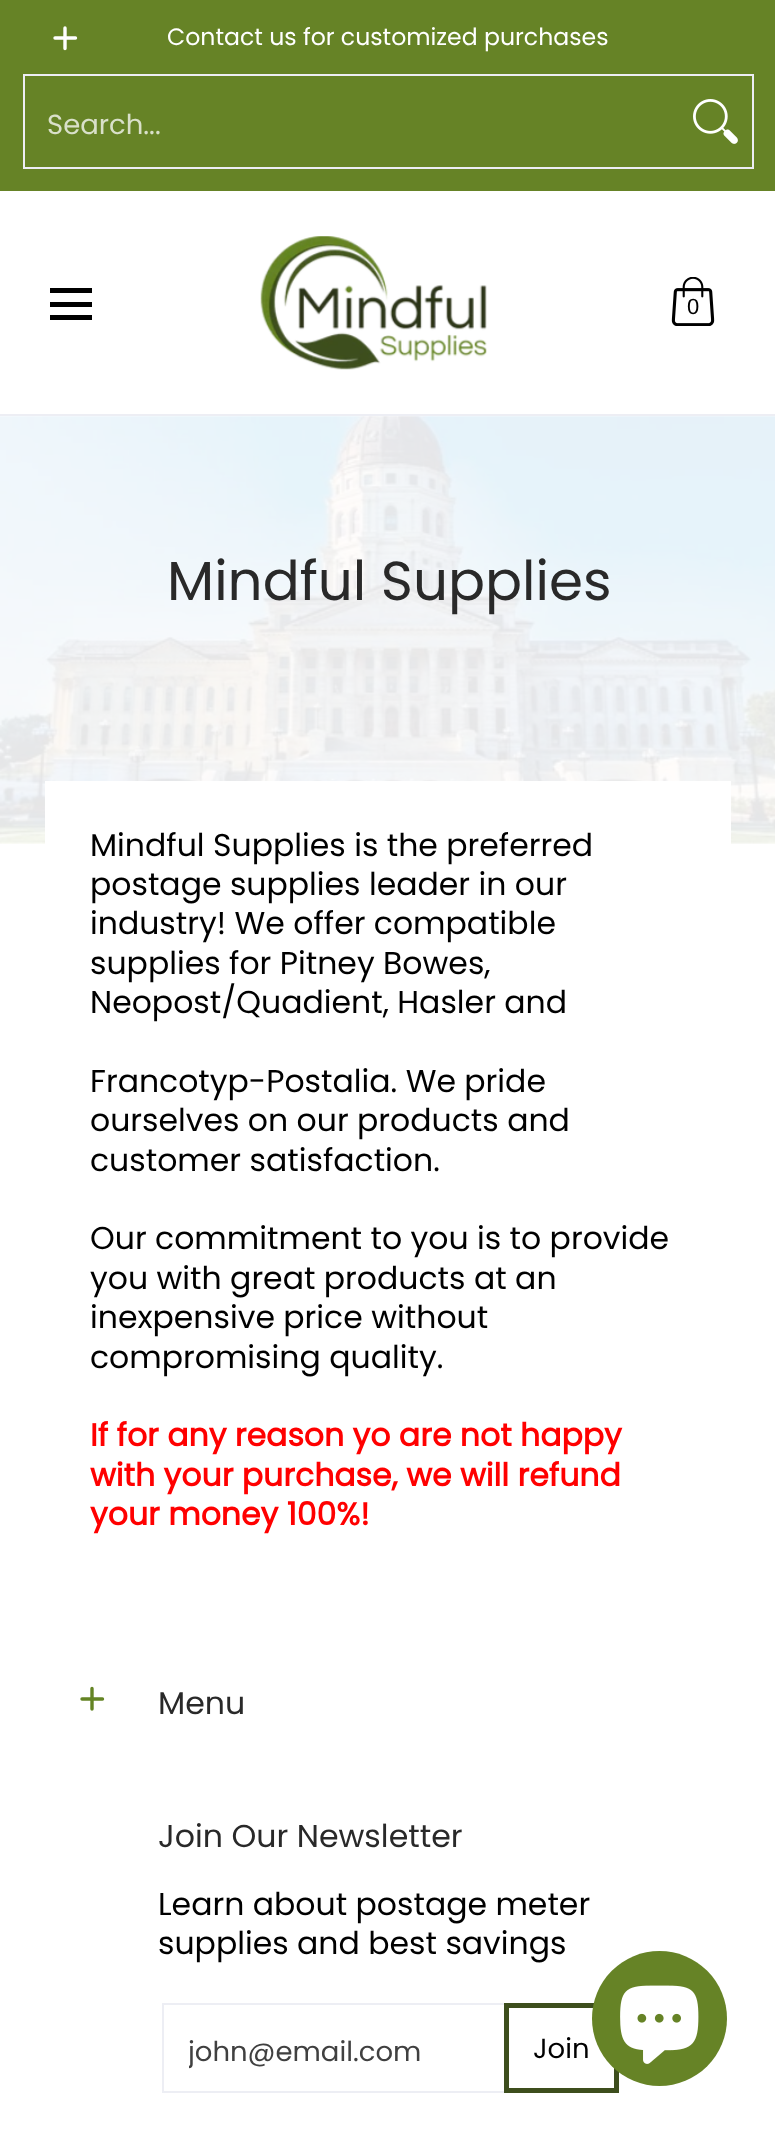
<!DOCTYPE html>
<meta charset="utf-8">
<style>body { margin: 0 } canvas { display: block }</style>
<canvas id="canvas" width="775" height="2131"></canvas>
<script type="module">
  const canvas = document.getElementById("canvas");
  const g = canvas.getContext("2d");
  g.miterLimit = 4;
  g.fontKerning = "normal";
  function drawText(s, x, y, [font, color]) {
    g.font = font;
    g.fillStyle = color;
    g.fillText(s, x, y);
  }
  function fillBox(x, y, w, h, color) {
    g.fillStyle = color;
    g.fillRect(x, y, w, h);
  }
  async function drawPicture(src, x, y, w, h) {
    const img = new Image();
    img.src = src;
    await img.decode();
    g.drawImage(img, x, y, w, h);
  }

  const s1 = ["23.6px Poppins", "#FFFFFF"];
  const s2 = ["27.5px Poppins", "#D9E0C9"];
  const s3 = ["22px Liberation Sans", "#000000"];
  const s4 = ["54.75px Poppins", "#292929"];
  const s5 = ["31.5px Poppins", "#000000"];
  const s6 = ["bold 31.5px Poppins", "#FF0000"];
  const s7 = ["31.6px Poppins", "#292929"];
  const s8 = ["27.5px Poppins", "#404040"];
  const s9 = ["27.5px Poppins", "#000000"];

  fillBox(0, 0, 775, 2131, "#FFFFFF");
  fillBox(0, 0, 775, 191, "#668326");
  g.beginPath();
  g.moveTo(65, 28);
  g.lineTo(65, 48.5);
  g.moveTo(75.5, 38);
  g.lineTo(55, 38);
  g.strokeStyle = "#FFFFFF";
  g.lineWidth = 3.4;
  g.lineCap = "round";
  g.lineJoin = "round";
  g.stroke();
  drawText("Contact us for customized purchases", 167, 45, s1);
  g.strokeStyle = "#EDEEF4";
  g.lineWidth = 2;
  g.lineJoin = "miter";
  g.strokeRect(24, 75, 729, 93);
  drawText("Search...", 47, 134, s2);
  await drawPicture("pic1.png", 693, 99, 45, 45);
  fillBox(0, 414, 775, 2, "#EDEEF4");
  fillBox(50, 288, 42, 5, "#000000");
  fillBox(50, 315, 42, 5, "#000000");
  fillBox(50, 302, 42, 5, "#000000");
  await drawPicture("pic2.png", 260, 236, 227, 134);
  await drawPicture("pic3.png", 671, 277, 44, 49);
  drawText("0", 687, 314, s3);
  await drawPicture("pic4.png", 0, 416, 775, 428);
  drawText("Mindful Supplies", 167, 600, s4);
  fillBox(45, 781, 686, 63, "#FFFFFF");
  drawText("Mindful Supplies is the preferred", 90, 856, s5);
  drawText("postage supplies leader in our", 90, 895, s5);
  drawText("industry! We offer compatible", 90, 934, s5);
  drawText("supplies for Pitney Bowes,", 90, 974, s5);
  drawText("Neopost/Quadient, Hasler and", 90, 1013, s5);
  drawText("Francotyp-Postalia. We pride", 90, 1092, s5);
  drawText("ourselves on our products and", 90, 1131, s5);
  drawText("customer satisfaction.", 90, 1171, s5);
  drawText("Our commitment to you is to provide", 90, 1249, s5);
  drawText("you with great products at an", 90, 1289, s5);
  drawText("inexpensive price without", 90, 1328, s5);
  drawText("compromising quality.", 90, 1368, s5);
  drawText("If for any reason yo are not happy", 90, 1446, s6);
  drawText("with your purchase, we will refund", 90, 1486, s6);
  drawText("your money 100%!", 90, 1525, s6);
  g.beginPath();
  g.moveTo(92, 1688.5);
  g.lineTo(92, 1709);
  g.moveTo(102.5, 1699);
  g.lineTo(82, 1699);
  g.strokeStyle = "#648424";
  g.lineWidth = 3.4;
  g.lineJoin = "round";
  g.stroke();
  drawText("Menu", 158, 1714, s7);
  drawText("Join Our Newsletter", 158, 1847, s7);
  drawText("Learn about postage meter", 158, 1915, s5);
  drawText("supplies and best savings", 158, 1954, s5);
  g.strokeStyle = "#EDEEF4";
  g.lineWidth = 2;
  g.lineJoin = "miter";
  g.strokeRect(163, 2004, 345, 88);
  g.save();
  g.beginPath();
  g.rect(189, 2032, 293, 40);
  g.clip();
  drawText("john@email.com", 188, 2061, s8);
  g.restore();
  g.strokeStyle = "#3D4E1D";
  g.lineWidth = 5;
  g.strokeRect(506.5, 2005.5, 110, 85);
  drawText("Join", 533, 2058, s9);
  g.fillStyle = "#668326";
  g.beginPath();
  g.arc(659.5, 2018.5, 67.5, 0, Math.PI * 2);
  g.fill();
  await drawPicture("pic5.png", 620, 1985, 79, 79);
</script>
